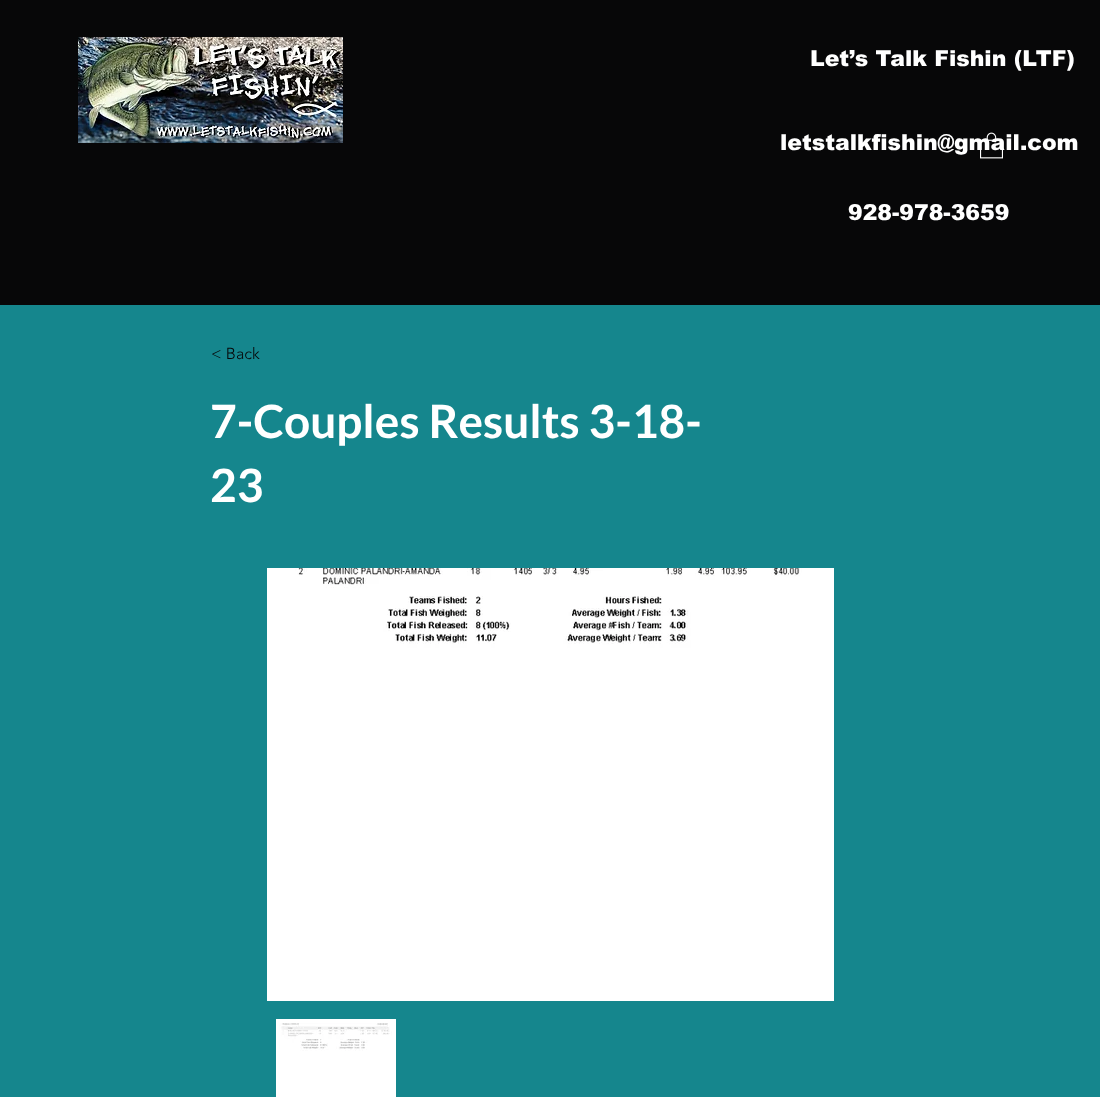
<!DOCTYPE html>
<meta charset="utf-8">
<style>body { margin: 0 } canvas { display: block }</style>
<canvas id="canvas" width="1100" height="1097"></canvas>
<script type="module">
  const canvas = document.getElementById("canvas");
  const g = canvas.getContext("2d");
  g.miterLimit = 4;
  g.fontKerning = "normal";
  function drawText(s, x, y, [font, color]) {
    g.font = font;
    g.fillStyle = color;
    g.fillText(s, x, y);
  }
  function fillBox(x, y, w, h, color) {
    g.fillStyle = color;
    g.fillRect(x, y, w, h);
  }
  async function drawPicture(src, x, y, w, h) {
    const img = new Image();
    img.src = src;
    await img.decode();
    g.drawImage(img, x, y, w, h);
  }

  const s1 = ["900 22px arial", "#FFFFFF"];
  const s2 = ["300 16px 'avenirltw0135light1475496'", "#070708"];
  const s3 = ["bold 46px Lato", "#FFFFFF"];

  fillBox(0, 0, 1100, 1097, "#15868D");
  fillBox(0, 0, 1100, 305, "#070708");
  await drawPicture("pic1.png", 78, 37, 265, 106);
  drawText("Let’s Talk Fishin (LTF)", 810, 66, s1);
  drawText("letstalkfishin@gmail.com", 780, 150, s1);
  await drawPicture("pic2.png", 980, 132, 23, 27);
  drawText("928-978-3659", 848, 220, s1);
  drawText("< Back", 211, 359, s2);
  drawText("7-Couples Results 3-18-", 210, 438, s3);
  drawText("23", 210, 502, s3);
  await drawPicture("pic3.png", 267, 568, 567, 433);
  fillBox(276, 1019, 120, 78, "#FFFFFF");
  await drawPicture("pic4.png", 279, 1023, 113, 28);
</script>
